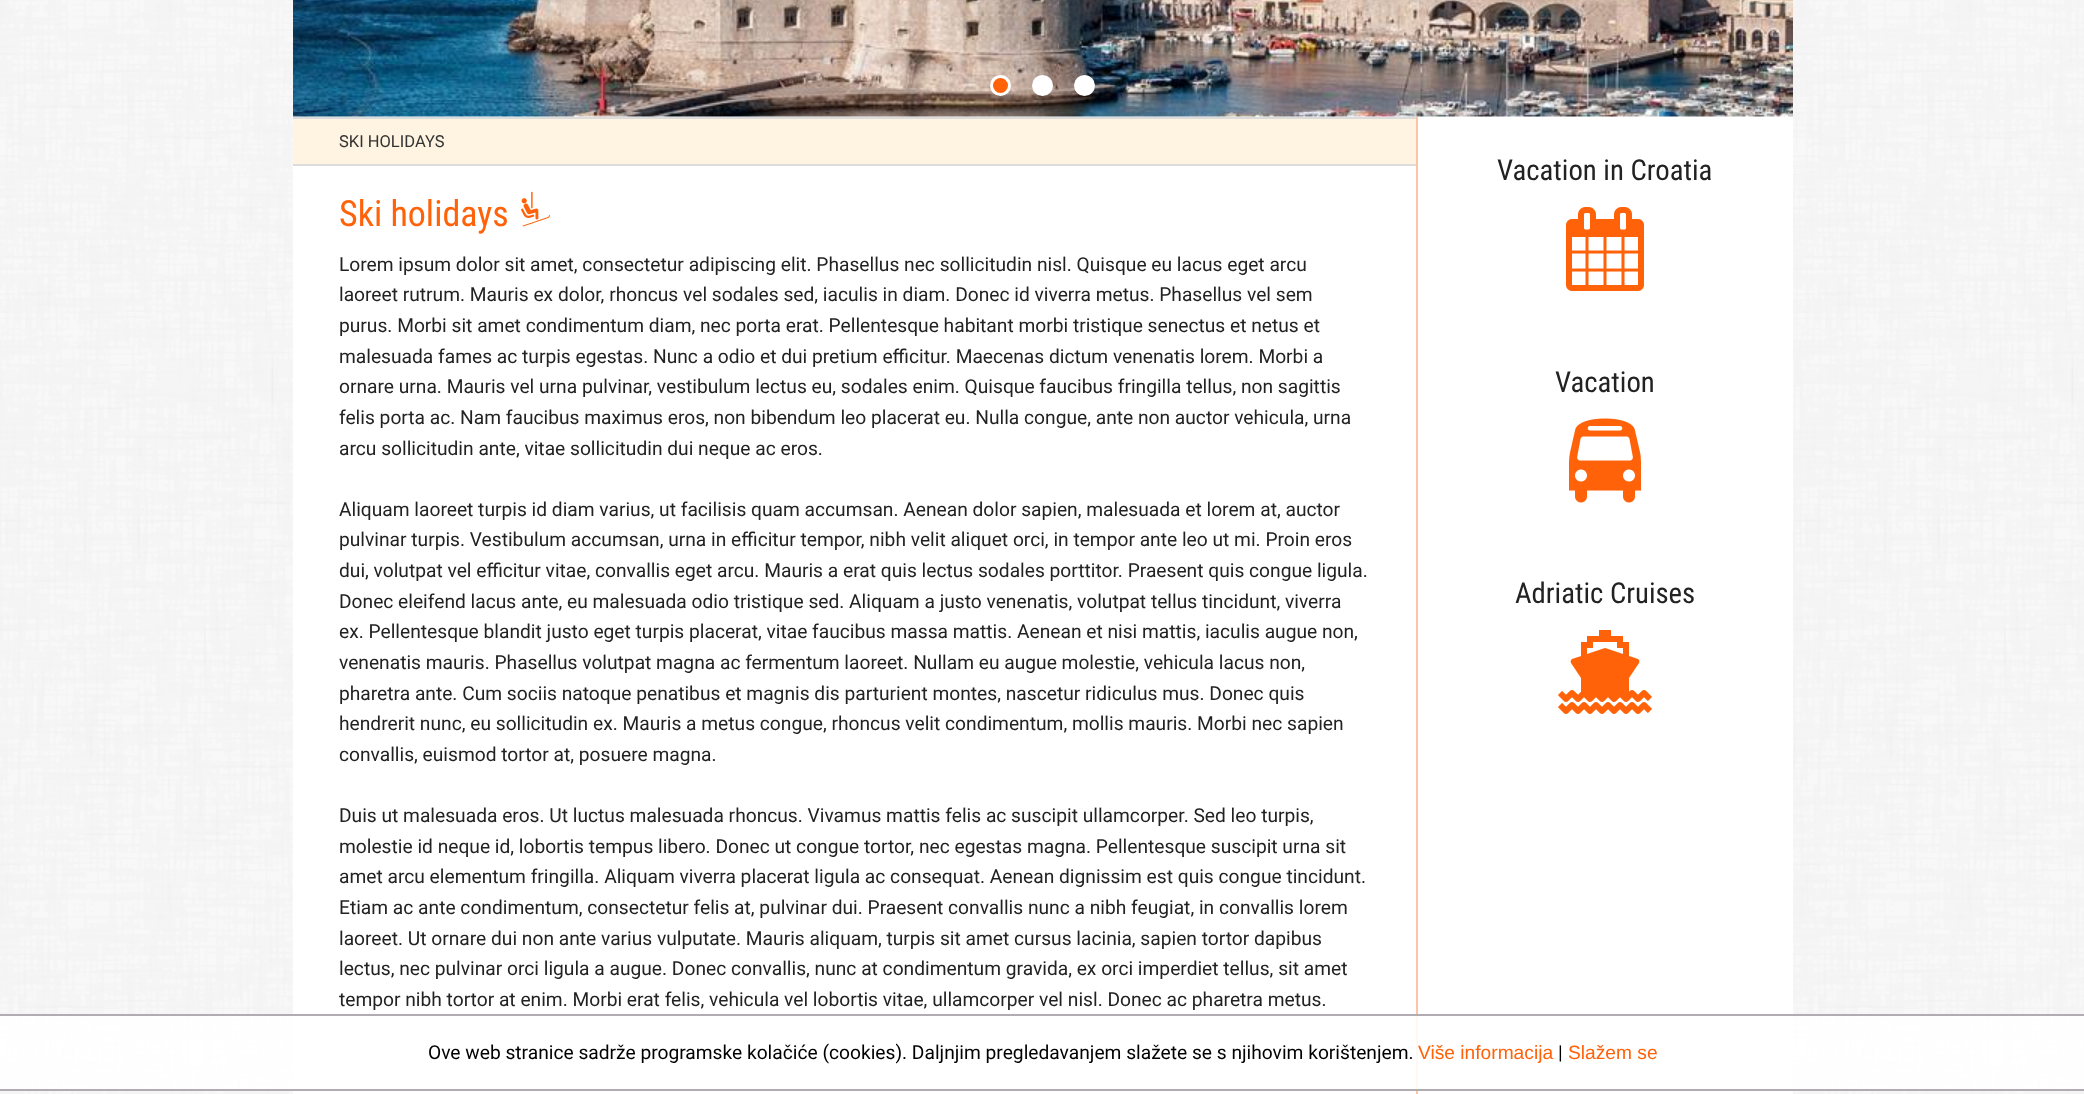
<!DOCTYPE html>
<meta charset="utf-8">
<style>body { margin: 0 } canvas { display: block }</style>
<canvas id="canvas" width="2084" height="1094"></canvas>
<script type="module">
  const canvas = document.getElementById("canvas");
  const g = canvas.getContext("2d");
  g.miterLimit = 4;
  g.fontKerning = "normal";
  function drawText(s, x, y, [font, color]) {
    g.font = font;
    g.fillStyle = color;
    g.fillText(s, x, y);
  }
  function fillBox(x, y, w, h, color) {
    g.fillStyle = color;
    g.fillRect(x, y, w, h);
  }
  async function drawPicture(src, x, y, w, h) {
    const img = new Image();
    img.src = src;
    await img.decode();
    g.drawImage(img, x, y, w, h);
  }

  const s1 = ["16.5px Roboto", "#333333"];
  const s2 = ["36px Roboto Condensed", "#FF6208"];
  const s3 = ["19.2px Roboto", "#222222"];
  const s4 = ["28.75px Roboto Condensed", "#222222"];
  const s5 = ["19.2px Roboto", "#000000"];
  const s6 = ["19.2px Liberation Sans", "#FF6208"];

  fillBox(0, 0, 2084, 1094, "#FFFFFF");
  await drawPicture("pic1.png", 0, 0, 2084, 1094);
  fillBox(293, 116, 1500, 978, "#FFFFFF");
  await drawPicture("pic2.png", 293, 0, 1500, 117);
  g.fillStyle = "#FF6208";
  g.beginPath();
  g.arc(1000.5, 85.5, 9, 0, Math.PI * 2);
  g.fill();
  g.strokeStyle = "#FFFFFF";
  g.lineWidth = 3;
  g.stroke();
  g.fillStyle = "#FFFFFF";
  g.beginPath();
  g.arc(1042.5, 85.5, 9, 0, Math.PI * 2);
  g.fill();
  g.stroke();
  g.beginPath();
  g.arc(1084.5, 85.5, 9, 0, Math.PI * 2);
  g.fill();
  g.stroke();
  fillBox(1416, 117, 2, 977, "#FFC3A1");
  fillBox(293, 119, 1123, 45, "#FFF4E1");
  fillBox(293, 117, 1123, 2, "#DCDCDC");
  fillBox(293, 164, 1123, 2, "#DCDCDC");
  drawText("SKI HOLIDAYS", 339, 147, s1);
  drawText("Ski holidays", 339, 226, s2);
  await drawPicture("pic3.png", 521, 191, 29, 36);
  drawText("Lorem ipsum dolor sit amet, consectetur adipiscing elit. Phasellus nec sollicitudin nisl. Quisque eu lacus eget arcu", 339, 271, s3);
  drawText("laoreet rutrum. Mauris ex dolor, rhoncus vel sodales sed, iaculis in diam. Donec id viverra metus. Phasellus vel sem", 339, 301, s3);
  drawText("purus. Morbi sit amet condimentum diam, nec porta erat. Pellentesque habitant morbi tristique senectus et netus et", 339, 332, s3);
  drawText("malesuada fames ac turpis egestas. Nunc a odio et dui pretium efficitur. Maecenas dictum venenatis lorem. Morbi a", 339, 363, s3);
  drawText("ornare urna. Mauris vel urna pulvinar, vestibulum lectus eu, sodales enim. Quisque faucibus fringilla tellus, non sagittis", 339, 393, s3);
  drawText("felis porta ac. Nam faucibus maximus eros, non bibendum leo placerat eu. Nulla congue, ante non auctor vehicula, urna", 339, 424, s3);
  drawText("arcu sollicitudin ante, vitae sollicitudin dui neque ac eros.", 339, 455, s3);
  drawText("Aliquam laoreet turpis id diam varius, ut facilisis quam accumsan. Aenean dolor sapien, malesuada et lorem at, auctor", 339, 516, s3);
  drawText("pulvinar turpis. Vestibulum accumsan, urna in efficitur tempor, nibh velit aliquet orci, in tempor ante leo ut mi. Proin eros", 339, 546, s3);
  drawText("dui, volutpat vel efficitur vitae, convallis eget arcu. Mauris a erat quis lectus sodales porttitor. Praesent quis congue ligula.", 339, 577, s3);
  drawText("Donec eleifend lacus ante, eu malesuada odio tristique sed. Aliquam a justo venenatis, volutpat tellus tincidunt, viverra", 339, 608, s3);
  drawText("ex. Pellentesque blandit justo eget turpis placerat, vitae faucibus massa mattis. Aenean et nisi mattis, iaculis augue non,", 339, 638, s3);
  drawText("venenatis mauris. Phasellus volutpat magna ac fermentum laoreet. Nullam eu augue molestie, vehicula lacus non,", 339, 669, s3);
  drawText("pharetra ante. Cum sociis natoque penatibus et magnis dis parturient montes, nascetur ridiculus mus. Donec quis", 339, 700, s3);
  drawText("hendrerit nunc, eu sollicitudin ex. Mauris a metus congue, rhoncus velit condimentum, mollis mauris. Morbi nec sapien", 339, 730, s3);
  drawText("convallis, euismod tortor at, posuere magna.", 339, 761, s3);
  drawText("Duis ut malesuada eros. Ut luctus malesuada rhoncus. Vivamus mattis felis ac suscipit ullamcorper. Sed leo turpis,", 339, 822, s3);
  drawText("molestie id neque id, lobortis tempus libero. Donec ut congue tortor, nec egestas magna. Pellentesque suscipit urna sit", 339, 853, s3);
  drawText("amet arcu elementum fringilla. Aliquam viverra placerat ligula ac consequat. Aenean dignissim est quis congue tincidunt.", 339, 883, s3);
  drawText("Etiam ac ante condimentum, consectetur felis at, pulvinar dui. Praesent convallis nunc a nibh feugiat, in convallis lorem", 339, 914, s3);
  drawText("laoreet. Ut ornare dui non ante varius vulputate. Mauris aliquam, turpis sit amet cursus lacinia, sapien tortor dapibus", 339, 945, s3);
  drawText("lectus, nec pulvinar orci ligula a augue. Donec convallis, nunc at condimentum gravida, ex orci imperdiet tellus, sit amet", 339, 975, s3);
  drawText("tempor nibh tortor at enim. Morbi erat felis, vehicula vel lobortis vitae, ullamcorper vel nisl. Donec ac pharetra metus.", 339, 1006, s3);
  drawText("Vacation in Croatia", 1497, 180, s4);
  await drawPicture("pic4.png", 1566, 207, 78, 84);
  drawText("Vacation", 1555, 392, s4);
  await drawPicture("pic5.png", 1569, 418, 72, 85);
  drawText("Adriatic Cruises", 1515, 603, s4);
  await drawPicture("pic6.png", 1558, 630, 94, 84);
  fillBox(0, 1016, 2084, 73, "rgba(255, 255, 255, 0.9)");
  fillBox(0, 1014, 2084, 2, "#B1ACB2");
  fillBox(0, 1089, 2084, 2, "#B1ACB2");
  drawText("Ove web stranice sadrže programske kolačiće (cookies). Daljnjim pregledavanjem slažete se s njihovim korištenjem.", 428, 1059, s5);
  drawText("Više informacija", 1418, 1059, s6);
  drawText("|", 1558, 1059, s5);
  drawText("Slažem se", 1568, 1059, s6);
</script>
